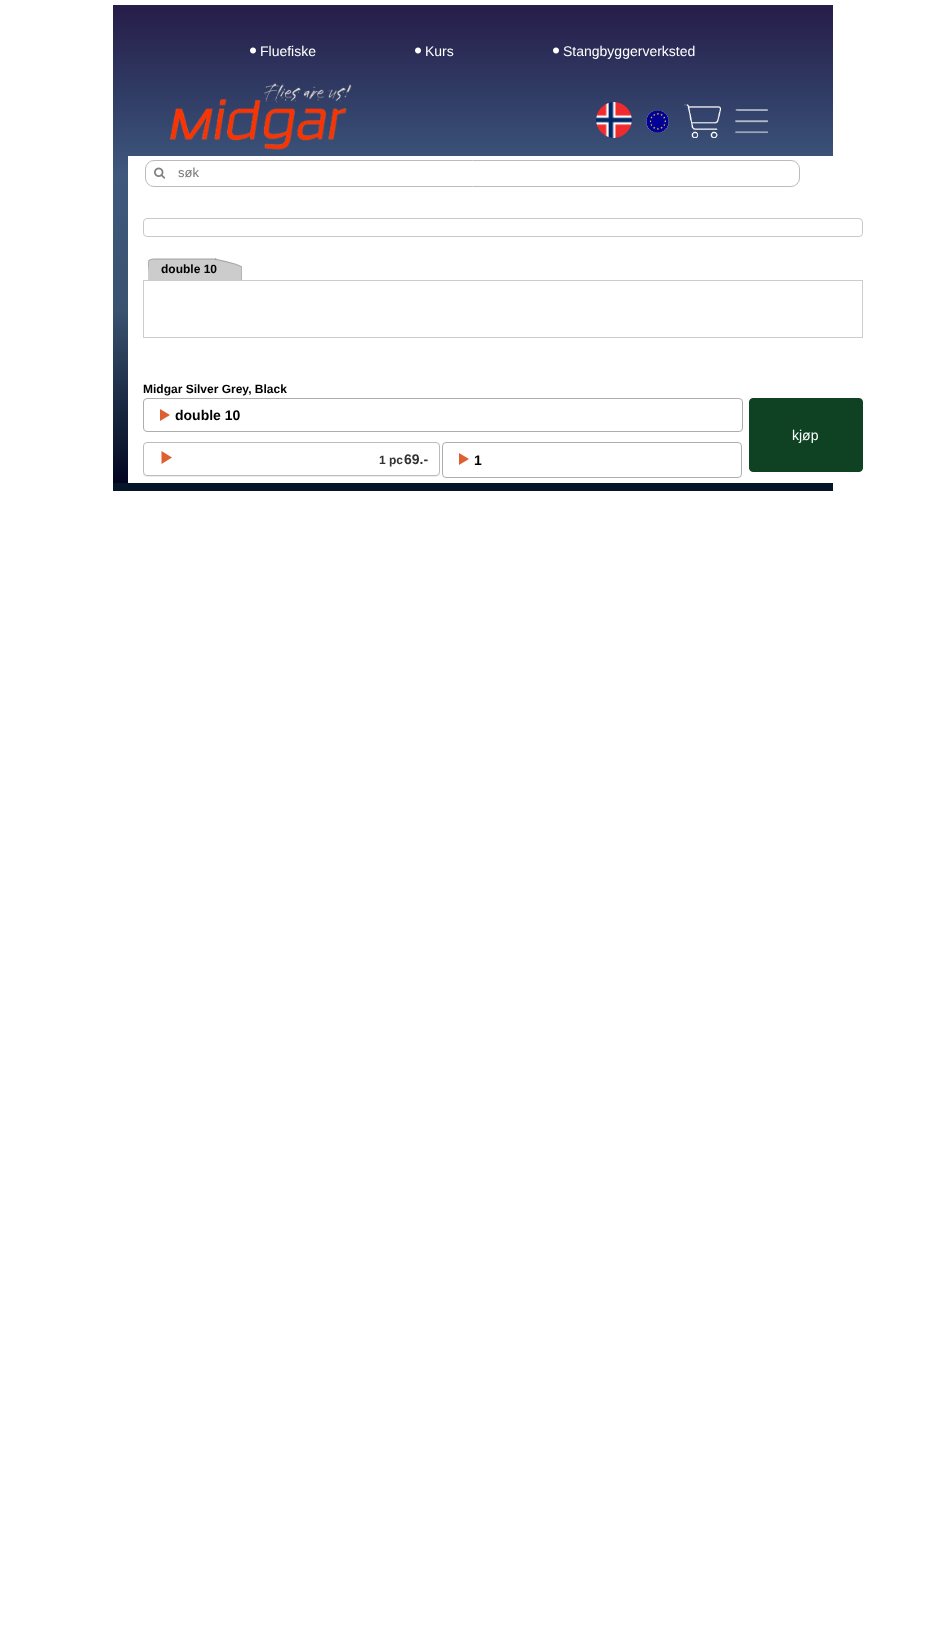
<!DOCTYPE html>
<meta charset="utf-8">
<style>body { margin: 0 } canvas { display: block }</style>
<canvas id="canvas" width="945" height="1630"></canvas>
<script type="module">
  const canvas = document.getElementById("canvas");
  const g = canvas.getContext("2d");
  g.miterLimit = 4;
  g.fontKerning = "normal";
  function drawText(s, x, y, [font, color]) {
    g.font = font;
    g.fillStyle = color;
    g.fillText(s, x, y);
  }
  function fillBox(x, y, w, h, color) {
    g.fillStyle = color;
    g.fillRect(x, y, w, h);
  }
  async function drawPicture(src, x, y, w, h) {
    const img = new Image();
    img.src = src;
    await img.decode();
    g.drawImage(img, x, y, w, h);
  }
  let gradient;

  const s1 = ["14px Liberation Sans", "#FFFFFF"];
  const s2 = ["13px Liberation Sans", "#757575"];
  const s3 = ["bold 12px Liberation Sans", "#000000"];
  const s4 = ["bold 14px Liberation Sans", "#000000"];
  const s5 = ["bold 12px Liberation Sans", "#333333"];
  const s6 = ["bold 14px Liberation Sans", "#333333"];

  fillBox(0, 0, 945, 1630, "#FFFFFF");
  gradient = g.createLinearGradient(473, 5, 473, 483);
  gradient.addColorStop(0, "#261D48");
  gradient.addColorStop(0.09, "#2B2C56");
  gradient.addColorStop(0.18, "#303B64");
  gradient.addColorStop(0.27, "#374A71");
  gradient.addColorStop(0.36, "#3F597D");
  gradient.addColorStop(0.45, "#3D5779");
  gradient.addColorStop(0.55, "#3B5474");
  gradient.addColorStop(0.64, "#395270");
  gradient.addColorStop(0.73, "#2B3F5B");
  gradient.addColorStop(0.82, "#1D2C47");
  gradient.addColorStop(0.91, "#101B33");
  gradient.addColorStop(1, "#020421");
  g.fillStyle = gradient;
  g.fillRect(113, 5, 720, 478);
  fillBox(113, 483, 720, 8, "#061629");
  await drawPicture("pic1.png", 250, 47, 6, 7);
  drawText("Fluefiske", 260, 56, s1);
  await drawPicture("pic1.png", 415, 47, 6, 7);
  drawText("Kurs", 425, 56, s1);
  await drawPicture("pic1.png", 553, 47, 6, 7);
  drawText("Stangbyggerverksted", 563, 56, s1);
  await drawPicture("pic2.png", 170, 83, 182, 67);
  await drawPicture("pic3.png", 596, 102, 36, 36);
  await drawPicture("pic4.png", 646, 110, 23, 23);
  await drawPicture("pic5.png", 684, 104, 37, 34);
  await drawPicture("pic6.png", 735, 109, 33, 25);
  fillBox(128, 156, 705, 327, "#FFFFFF");
  g.beginPath();
  g.roundRect(145.5, 160.5, 654, 26, 8.5);
  g.strokeStyle = "#BBBBBB";
  g.stroke();
  await drawPicture("pic7.png", 154, 167, 12, 12);
  drawText("søk", 178, 177, s2);
  g.beginPath();
  g.roundRect(143.5, 218.5, 719, 18, 3.5);
  g.strokeStyle = "#C9C9C9";
  g.stroke();
  await drawPicture("pic8.png", 148, 258, 13, 22);
  await drawPicture("pic9.png", 161, 258, 81, 22);
  drawText("double 10", 161, 273, s3);
  g.strokeStyle = "#CCCCCC";
  g.strokeRect(143.5, 280.5, 719, 57);
  drawText("Midgar Silver Grey, Black", 143, 393, s3);
  g.beginPath();
  g.roundRect(143.5, 398.5, 599, 33, 3.5);
  g.strokeStyle = "#ADADAD";
  g.stroke();
  g.fillStyle = "#DE5F32";
  g.beginPath();
  g.moveTo(160, 421);
  g.lineTo(170, 415);
  g.lineTo(160, 409);
  g.closePath();
  g.fill();
  drawText("double 10", 175, 420, s4);
  g.save();
  g.beginPath();
  g.moveTo(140, 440);
  g.lineTo(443, 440);
  g.lineTo(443, 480);
  g.lineTo(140, 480);
  g.closePath();
  g.moveTo(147, 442);
  g.lineTo(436, 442);
  g.bezierCurveTo(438, 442, 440, 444, 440, 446);
  g.lineTo(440, 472);
  g.bezierCurveTo(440, 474, 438, 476, 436, 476);
  g.lineTo(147, 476);
  g.bezierCurveTo(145, 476, 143, 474, 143, 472);
  g.lineTo(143, 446);
  g.bezierCurveTo(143, 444, 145, 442, 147, 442);
  g.closePath();
  g.clip("evenodd");
  g.fillStyle = "rgba(0, 0, 0, 0.07)";
  g.filter = "blur(0.5px)";
  g.beginPath();
  g.roundRect(143, 443, 297, 34, 4);
  g.fill();
  g.filter = "none";
  g.restore();
  g.beginPath();
  g.roundRect(143.5, 442.5, 296, 33, 3.5);
  g.strokeStyle = "#BBBBBB";
  g.stroke();
  g.fillStyle = "#DE5F32";
  g.beginPath();
  g.moveTo(161.5, 464);
  g.lineTo(172, 457.5);
  g.lineTo(161.5, 451);
  g.closePath();
  g.fill();
  drawText("1 pc", 379, 464, s5);
  drawText("69.-", 404, 464, s6);
  g.fillStyle = "#DE5F32";
  g.beginPath();
  g.moveTo(459, 465);
  g.lineTo(469, 459);
  g.lineTo(459, 453);
  g.closePath();
  g.fill();
  g.beginPath();
  g.roundRect(442.5, 442.5, 299, 35, 3.5);
  g.strokeStyle = "#ADADAD";
  g.stroke();
  drawText("1", 474, 465, s4);
  g.fillStyle = "#0E4223";
  g.beginPath();
  g.roundRect(749.5, 398.5, 113, 73, 3.5);
  g.fill();
  g.strokeStyle = "#0E4223";
  g.stroke();
  drawText("kjøp", 792, 440, s1);
</script>
